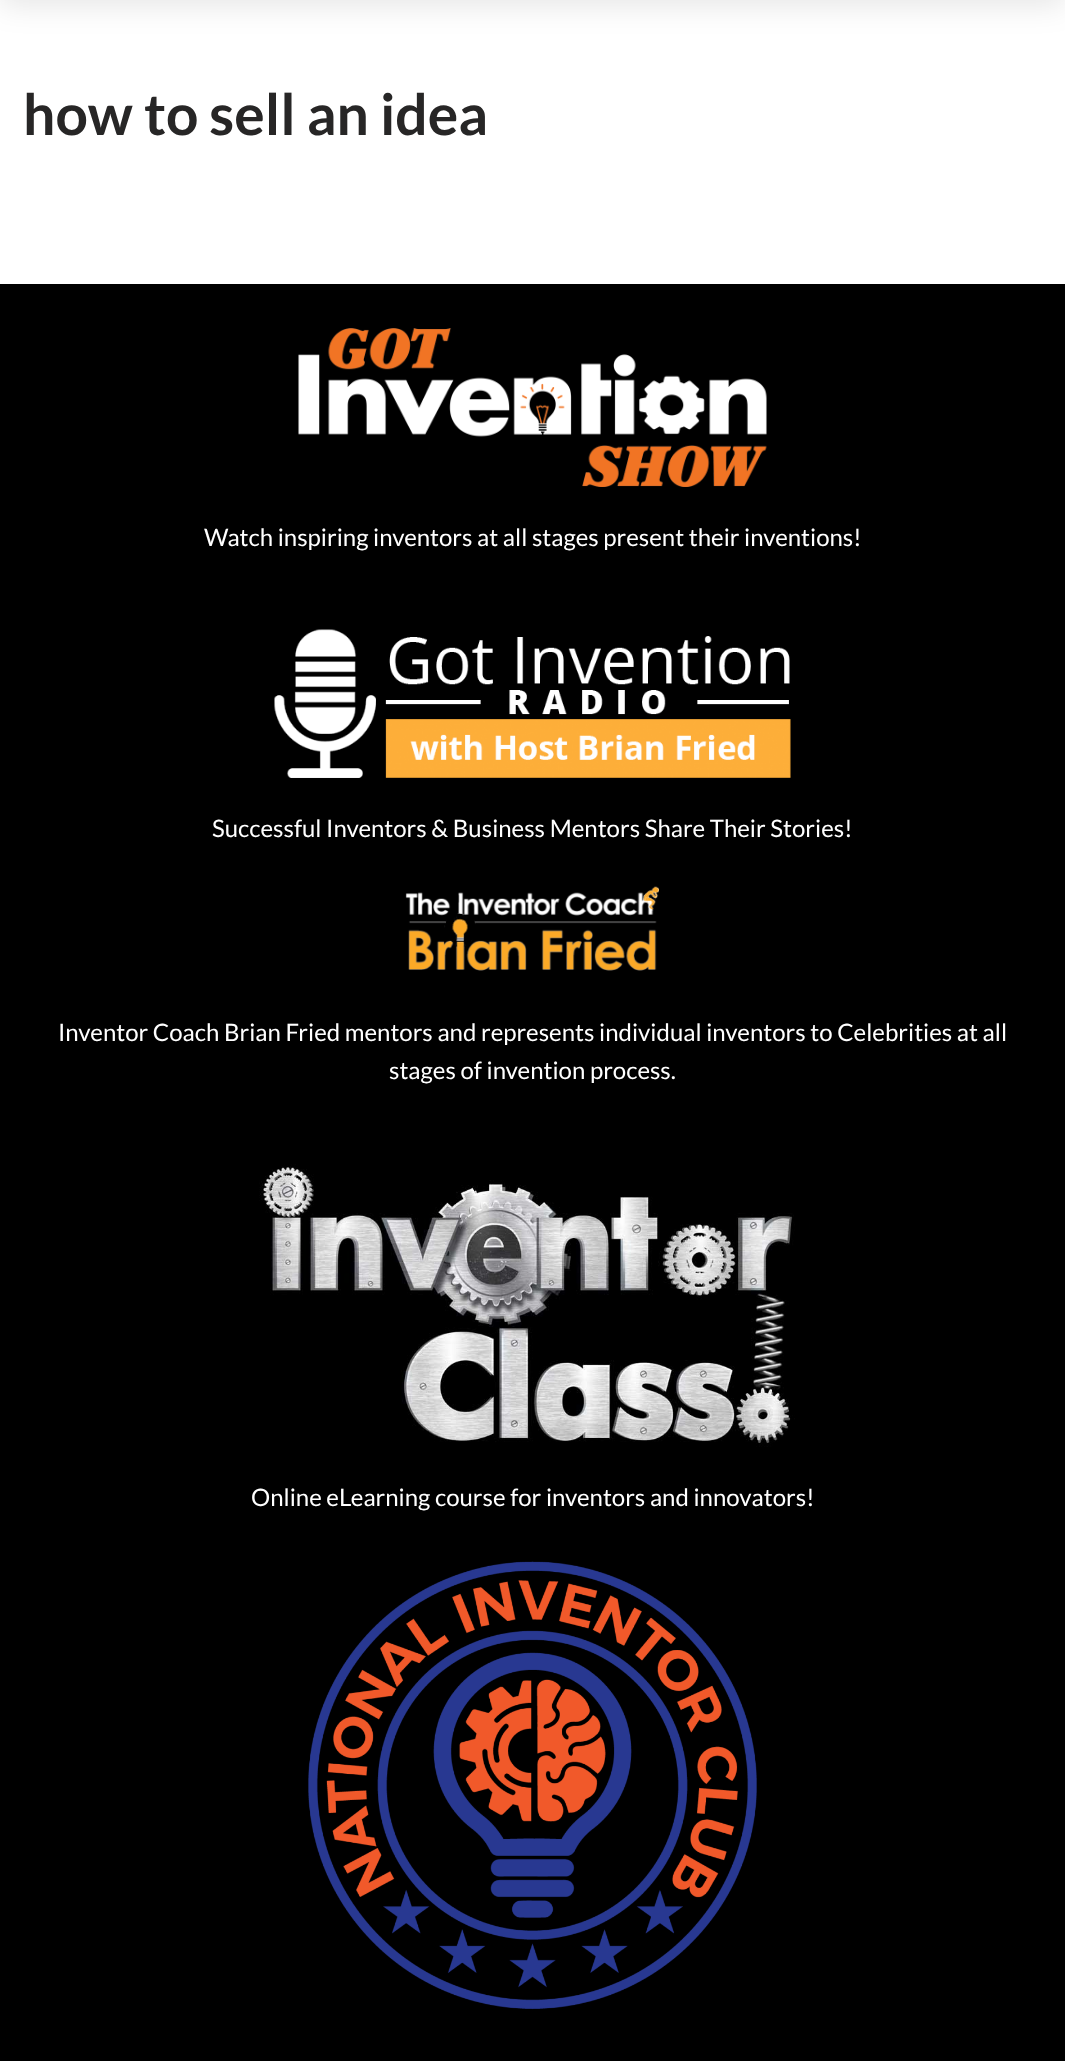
<!DOCTYPE html>
<meta charset="utf-8">
<style>body { margin: 0 } canvas { display: block }</style>
<canvas id="canvas" width="1065" height="2061"></canvas>
<script type="module">
  const canvas = document.getElementById("canvas");
  const g = canvas.getContext("2d");
  g.miterLimit = 4;
  g.fontKerning = "normal";
  function drawText(s, x, y, [font, color]) {
    g.font = font;
    g.fillStyle = color;
    g.fillText(s, x, y);
  }
  function fillBox(x, y, w, h, color) {
    g.fillStyle = color;
    g.fillRect(x, y, w, h);
  }
  async function drawPicture(src, x, y, w, h) {
    const img = new Image();
    img.src = src;
    await img.decode();
    g.drawImage(img, x, y, w, h);
  }

  const s1 = ["bold 57px Lato", "#272626"];
  const s2 = ["24px Lato", "#FFFFFF"];

  fillBox(0, 0, 1065, 2061, "#FFFFFF");
  g.fillStyle = "rgba(0, 0, 0, 0.1)";
  g.filter = "blur(15px)";
  g.beginPath();
  g.rect(0, -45, 1065, 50);
  g.fill();
  g.filter = "none";
  drawText("how to sell an idea", 23, 135, s1);
  fillBox(0, 284, 1065, 1777, "#000000");
  await drawPicture("pic1.png", 298, 328, 469, 159);
  drawText("Watch inspiring inventors at all stages present their inventions!", 204, 546, s2);
  await drawPicture("pic2.png", 274, 629, 517, 149);
  drawText("Successful Inventors & Business Mentors Share Their Stories!", 212, 837, s2);
  await drawPicture("pic3.png", 405, 886, 254, 85);
  drawText("Inventor Coach Brian Fried mentors and represents individual inventors to Celebrities at all", 58, 1041, s2);
  drawText("stages of invention process.", 389, 1079, s2);
  await drawPicture("pic4.png", 259, 1164, 536, 283);
  drawText("Online eLearning course for inventors and innovators!", 251, 1506, s2);
  await drawPicture("pic5.png", 308, 1561, 449, 449);
</script>
